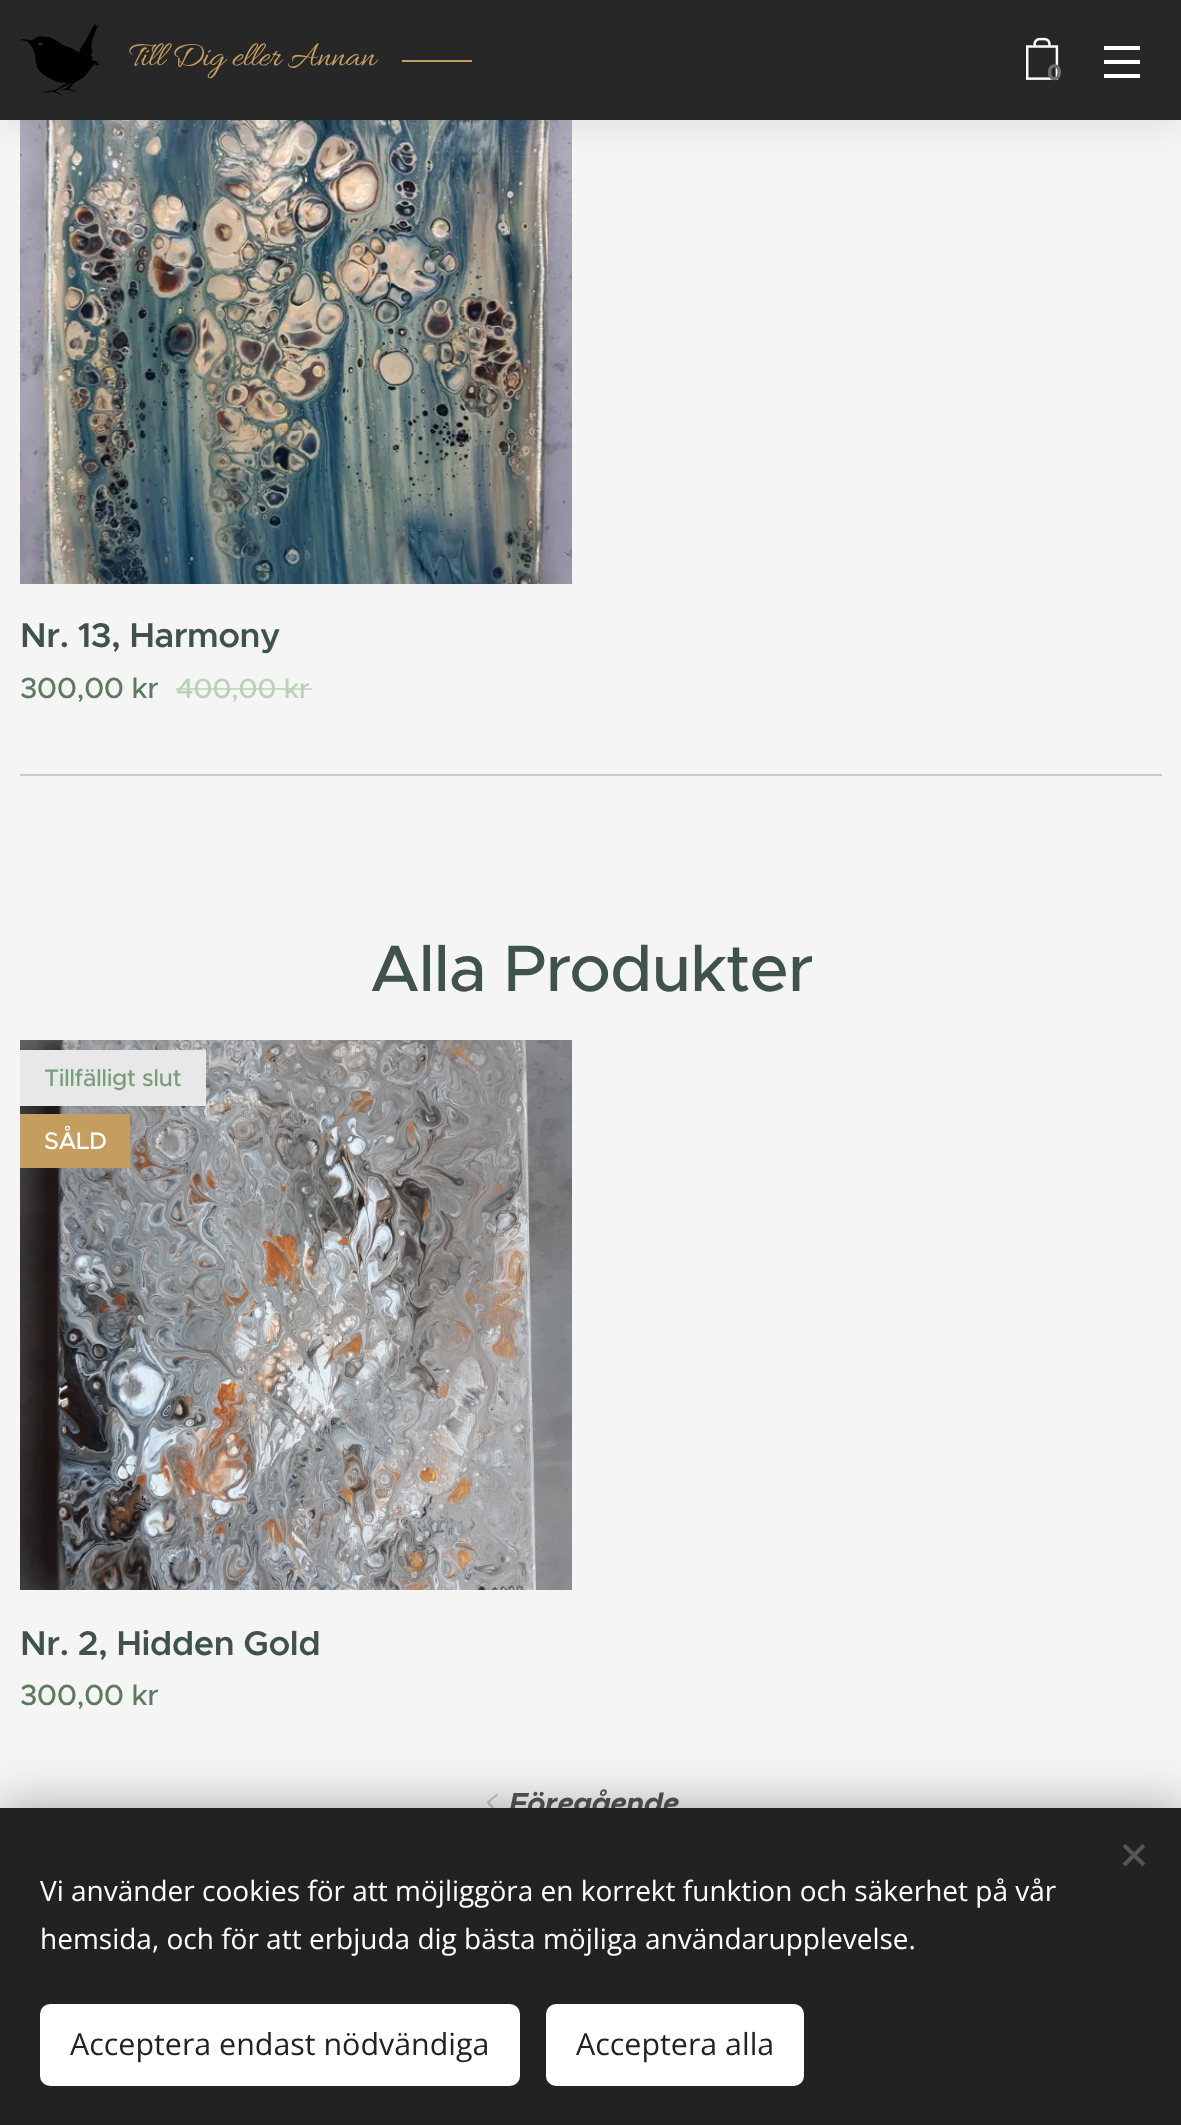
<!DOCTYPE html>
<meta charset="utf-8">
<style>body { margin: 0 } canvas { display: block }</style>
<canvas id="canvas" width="1181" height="2125"></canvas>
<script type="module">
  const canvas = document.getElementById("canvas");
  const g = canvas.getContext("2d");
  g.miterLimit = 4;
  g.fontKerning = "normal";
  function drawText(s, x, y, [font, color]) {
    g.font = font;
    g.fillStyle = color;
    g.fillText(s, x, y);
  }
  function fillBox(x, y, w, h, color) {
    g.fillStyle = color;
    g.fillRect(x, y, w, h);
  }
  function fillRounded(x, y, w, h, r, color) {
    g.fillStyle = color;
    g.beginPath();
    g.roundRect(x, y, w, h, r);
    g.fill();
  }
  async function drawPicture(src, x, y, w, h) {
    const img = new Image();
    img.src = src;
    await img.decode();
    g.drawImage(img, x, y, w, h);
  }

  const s1 = ["36px Allura", "#C59D5F"];
  const s2 = ["bold 22px Montserrat", "#6D6D6D"];
  const s3 = ["600 34.5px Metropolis", "#3F524C"];
  const s4 = ["500 29.25px Metropolis", "#5A7B5E"];
  const s5 = ["500 28px Metropolis", "#B7D3B4"];
  const s6 = ["500 66px Metropolis", "#3F524C"];
  const s7 = ["500 24px Metropolis", "#769F7A"];
  const s8 = ["500 24px Metropolis", "#FFFFFF"];
  const s9 = ["italic bold 29.25px Metropolis", "#555555"];
  const s10 = ["28px Open Sans", "#FFFFFF"];
  const s11 = ["30.4px Open Sans", "#222222"];

  fillBox(0, 0, 1181, 2125, "#F5F5F5");
  await drawPicture("pic3.png", 20, 120, 552, 464);
  g.fillStyle = "rgba(0, 0, 0, 0.07)";
  g.filter = "blur(15px)";
  g.beginPath();
  g.rect(0, 10, 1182, 120);
  g.fill();
  g.filter = "none";
  fillBox(0, 0, 1181, 120, "#272727");
  await drawPicture("pic1.png", 20, 23, 80, 73);
  g.letterSpacing = "-0.5px";
  drawText("Till Dig eller Annan", 129, 65, s1);
  fillBox(402, 60, 70, 2, "#C59D5F");
  await drawPicture("pic2.png", 1026, 37, 33, 43);
  g.letterSpacing = "0px";
  drawText("0", 1047, 80, s2);
  fillBox(1104, 60, 36, 4, "#FFFFFF");
  fillBox(1104, 46, 36, 4, "#FFFFFF");
  fillBox(1104, 74, 36, 4, "#FFFFFF");
  g.letterSpacing = "-0.5px";
  drawText("Nr. 13, Harmony", 20, 647, s3);
  drawText("300,00 kr", 20, 698, s4);
  drawText("400,00 kr", 176, 698, s5);
  fillBox(176, 688, 136, 2, "rgba(183, 211, 180, 0.75)");
  fillBox(20, 774, 1142, 2, "#C9C9C9");
  g.letterSpacing = "-1px";
  drawText("Alla Produkter", 370, 991, s6);
  await drawPicture("pic4.png", 20, 1040, 552, 550);
  fillBox(20, 1050, 186, 56, "#E8E8E8");
  g.letterSpacing = "-0.5px";
  drawText("Tillfälligt slut", 44, 1086, s7);
  fillBox(20, 1114, 110, 54, "#C59D5F");
  drawText("SÅLD", 44, 1149, s8);
  drawText("Nr. 2, Hidden Gold", 20, 1655, s3);
  drawText("300,00 kr", 20, 1705, s4);
  await drawPicture("pic5.png", 486, 1793, 12, 15);
  drawText("Föregående", 509, 1813, s9);
  g.fillStyle = "rgba(0, 0, 0, 0.33)";
  g.filter = "blur(25px)";
  g.beginPath();
  g.rect(0, 1808, 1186, 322);
  g.fill();
  g.filter = "none";
  fillBox(0, 1808, 1181, 317, "#222222");
  g.fillStyle = "#555555";
  g.beginPath();
  g.moveTo(1122.5, 1863.5);
  g.lineTo(1142.5, 1844);
  g.lineTo(1145.5, 1846.5);
  g.lineTo(1125.5, 1866.5);
  g.closePath();
  g.fill();
  g.beginPath();
  g.moveTo(1125.5, 1844);
  g.lineTo(1145.5, 1863.5);
  g.lineTo(1142.5, 1866.5);
  g.lineTo(1122.5, 1846.5);
  g.closePath();
  g.fill();
  g.letterSpacing = "0px";
  drawText("Vi använder cookies för att möjliggöra en korrekt funktion och säkerhet på vår", 40, 1901, s10);
  drawText("hemsida, och för att erbjuda dig bästa möjliga användarupplevelse.", 40, 1949, s10);
  fillRounded(40, 2004, 480, 82, 10, "#FFFFFF");
  drawText("Acceptera endast nödvändiga", 70, 2055, s11);
  fillRounded(546, 2004, 258, 82, 10, "#FFFFFF");
  drawText("Acceptera alla", 576, 2055, s11);
</script>
